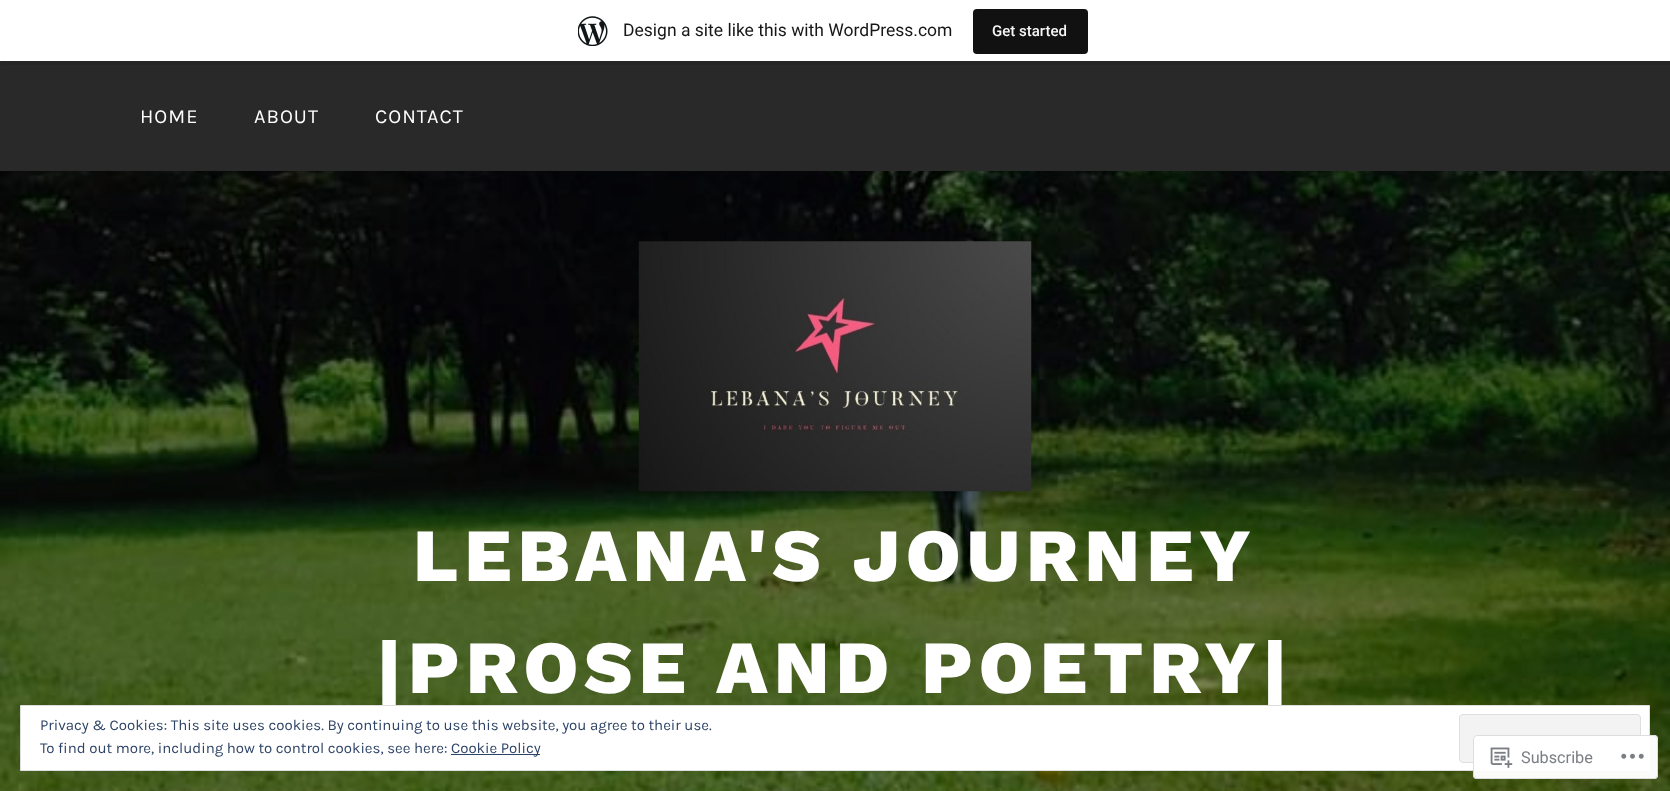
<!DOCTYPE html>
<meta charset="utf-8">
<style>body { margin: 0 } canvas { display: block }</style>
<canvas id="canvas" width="1670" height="791"></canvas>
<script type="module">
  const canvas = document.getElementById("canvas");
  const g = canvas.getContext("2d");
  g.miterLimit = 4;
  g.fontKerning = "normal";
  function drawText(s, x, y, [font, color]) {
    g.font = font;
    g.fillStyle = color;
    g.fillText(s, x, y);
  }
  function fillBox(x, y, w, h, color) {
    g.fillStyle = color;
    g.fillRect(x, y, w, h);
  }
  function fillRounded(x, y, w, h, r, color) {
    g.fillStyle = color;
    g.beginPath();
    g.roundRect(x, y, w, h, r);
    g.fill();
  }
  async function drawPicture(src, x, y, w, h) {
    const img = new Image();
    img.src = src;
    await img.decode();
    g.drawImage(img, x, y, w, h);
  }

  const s1 = ["17.5px Roboto", "#171717"];
  const s2 = ["500 15px Roboto", "#F6F7F7"];
  const s3 = ["20px Karla", "#FFFFFF"];
  const s4 = ["800 75px Work Sans", "#FFFFFF"];
  const s5 = ["15px Karla", "#2E4467"];
  const s6 = ["16.25px Roboto", "#7B7F84"];

  fillBox(0, 0, 1670, 791, "#FFFFFF");
  fillBox(0, 61, 1670, 110, "#29292A");
  g.fillStyle = "#262627";
  g.beginPath();
  g.moveTo(1, 61);
  g.lineTo(1, 65);
  g.lineTo(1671, 65);
  g.lineTo(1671, 4);
  g.lineTo(1670, 4);
  g.lineTo(1670, 61);
  g.closePath();
  g.fill();
  await drawPicture("pic1.png", 578, 16, 30, 30);
  drawText("Design a site like this with WordPress.com", 623, 36, s1);
  fillRounded(973, 9, 115, 45, 4, "#111111");
  drawText("Get started", 992, 36, s2);
  g.letterSpacing = "1px";
  drawText("HOME", 140, 123, s3);
  drawText("ABOUT", 254, 123, s3);
  drawText("CONTACT", 375, 123, s3);
  await drawPicture("pic2.png", 0, 171, 1670, 620);
  await drawPicture("pic3.png", 638, 241, 394, 251);
  g.letterSpacing = "6px";
  drawText("LEBANA'S JOURNEY", 413, 581, s4);
  drawText("|PROSE AND POETRY|", 376, 693, s4);
  g.beginPath();
  g.rect(20.5, 705.5, 1629, 65);
  g.fill();
  g.strokeStyle = "#DEDEDE";
  g.stroke();
  g.letterSpacing = "0px";
  drawText("Privacy & Cookies: This site uses cookies. By continuing to use this website, you agree to their use.", 40, 730, s5);
  g.fillStyle = "#F3F3F3";
  g.beginPath();
  g.roundRect(1459.5, 714.5, 181, 48, 3.5);
  g.fill();
  g.stroke();
  drawText("To find out more, including how to control cookies, see here:", 40, 753, s5);
  fillBox(451, 754, 89, 1, "#2E4467");
  drawText("Cookie Policy", 451, 753, s5);
  fillRounded(1473, 735, 185, 44, 4, "rgba(255, 255, 255, 0.98)");
  g.beginPath();
  g.roundRect(1473.5, 735.5, 184, 43, 3.5);
  g.strokeStyle = "rgba(220, 220, 222, 0.98)";
  g.stroke();
  await drawPicture("pic4.png", 1490, 747, 23, 21);
  drawText("Subscribe", 1521, 763, s6);
  await drawPicture("pic5.png", 1621, 753, 23, 6);
</script>
